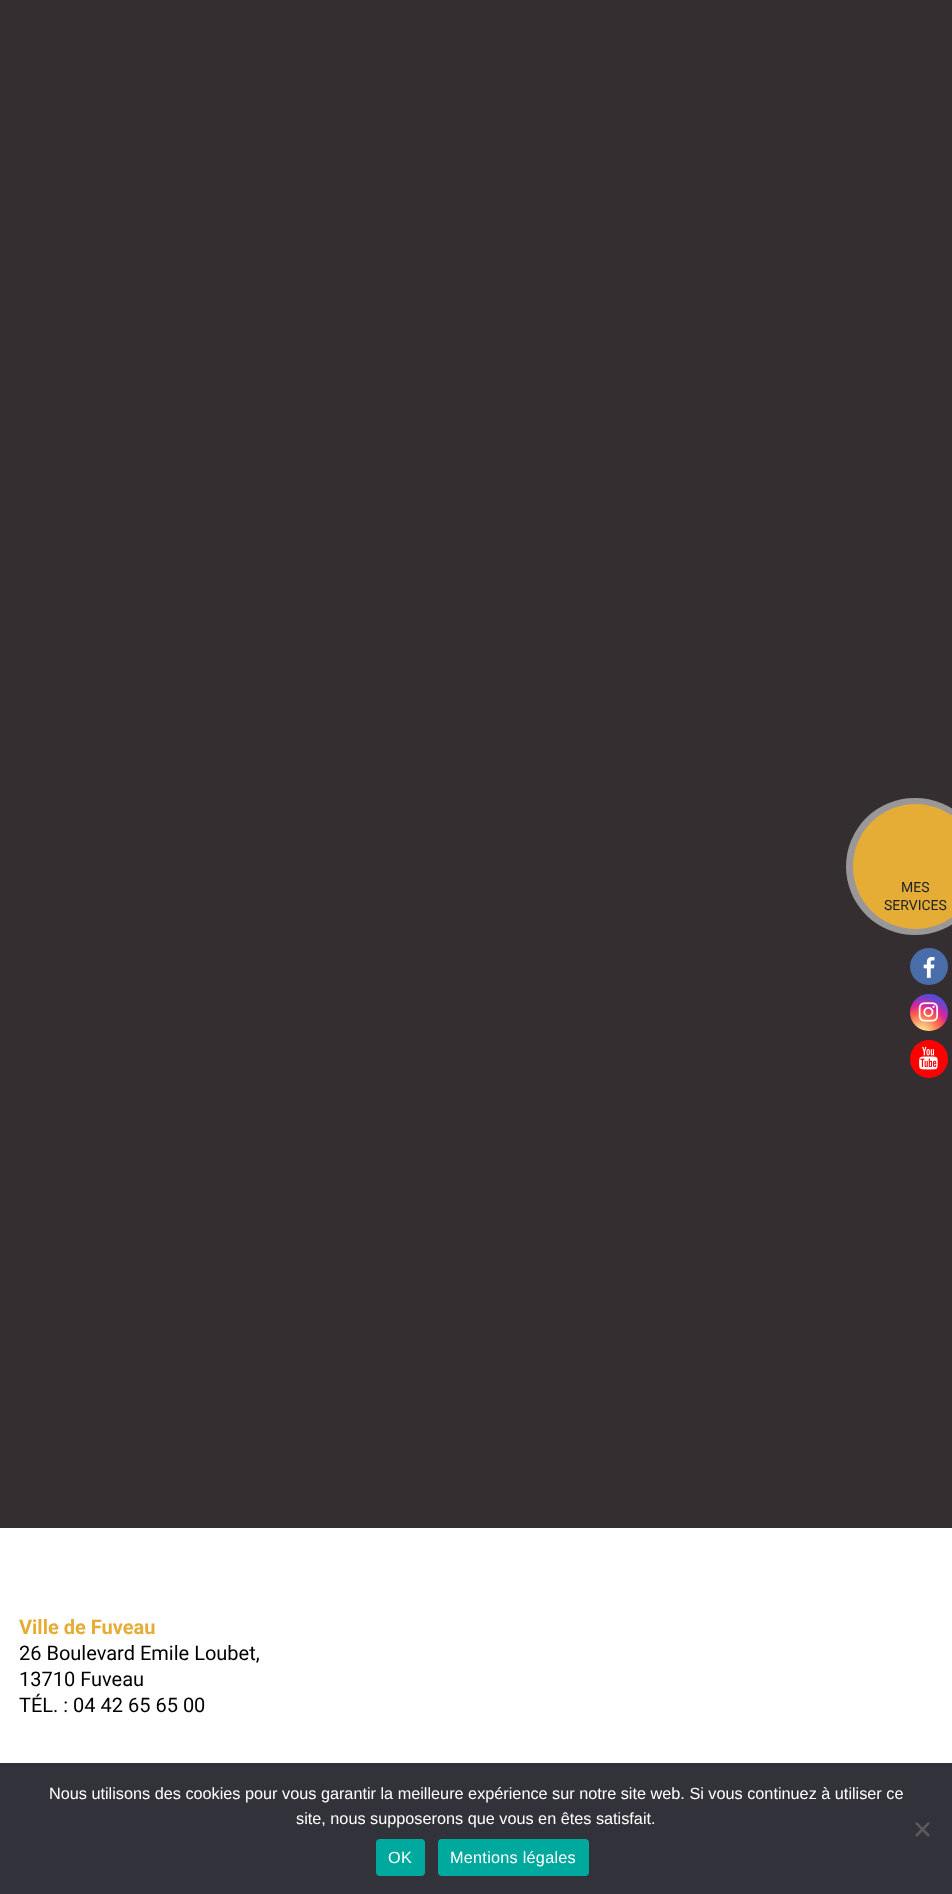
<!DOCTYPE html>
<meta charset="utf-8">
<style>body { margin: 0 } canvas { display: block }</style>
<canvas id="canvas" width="952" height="1894"></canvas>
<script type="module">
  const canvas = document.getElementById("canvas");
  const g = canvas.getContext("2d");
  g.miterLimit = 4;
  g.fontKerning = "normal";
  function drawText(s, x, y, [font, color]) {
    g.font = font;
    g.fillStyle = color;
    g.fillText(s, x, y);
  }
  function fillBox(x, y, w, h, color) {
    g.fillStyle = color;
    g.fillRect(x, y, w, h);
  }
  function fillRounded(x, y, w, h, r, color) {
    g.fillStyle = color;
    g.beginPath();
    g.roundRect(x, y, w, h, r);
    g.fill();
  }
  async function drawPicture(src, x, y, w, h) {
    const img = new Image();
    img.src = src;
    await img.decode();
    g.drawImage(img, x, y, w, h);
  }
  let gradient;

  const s1 = ["14px Roboto", "#1C212A"];
  const s2 = ["bold 20px Roboto", "#E5AC36"];
  const s3 = ["20px Roboto", "#000000"];
  const s4 = ["16.25px Liberation Sans", "#FFFFFF"];

  fillBox(0, 0, 952, 1894, "#FFFFFF");
  fillBox(0, 0, 952, 1528, "#342E30");
  fillRounded(846, 798, 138, 137, 68.5, "#9A9798");
  g.fillStyle = "#E5AC36";
  g.beginPath();
  g.arc(915.5, 866.5, 62.5, 0, Math.PI * 2);
  g.fill();
  drawText("MES", 901, 892, s1);
  drawText("SERVICES", 884, 910, s1);
  fillRounded(910, 948, 38, 37, 18.5, "#496DA8");
  await drawPicture("pic1.png", 923, 957, 12, 21);
  gradient = g.createRadialGradient(921, 1034, 0, 921, 1034, 48);
  gradient.addColorStop(0, "#FDF497");
  gradient.addColorStop(0.05, "#FDF497");
  gradient.addColorStop(0.45, "#FD5949");
  gradient.addColorStop(0.6, "#D6249F");
  gradient.addColorStop(0.9, "#285AEB");
  g.fillStyle = gradient;
  g.beginPath();
  g.roundRect(910, 994, 38, 37, 18.5);
  g.fill();
  await drawPicture("pic2.png", 918, 1002, 21, 20);
  g.fillStyle = "#FF0000";
  g.beginPath();
  g.arc(929, 1059, 19, 0, Math.PI * 2);
  g.fill();
  await drawPicture("pic3.png", 919, 1046, 19, 24);
  drawText("Ville de Fuveau", 19, 1634, s2);
  drawText("26 Boulevard Emile Loubet,", 19, 1660, s3);
  drawText("13710 Fuveau", 19, 1686, s3);
  drawText("TÉL. : 04 42 65 65 00", 19, 1712, s3);
  fillBox(0, 1763, 952, 131, "#32323A");
  drawText("Nous utilisons des cookies pour vous garantir la meilleure expérience sur notre site web. Si vous continuez à utiliser ce", 49, 1799, s4);
  drawText("site, nous supposerons que vous en êtes satisfait.", 296, 1824, s4);
  g.fillStyle = "#59595D";
  g.beginPath();
  g.moveTo(928, 1822);
  g.lineTo(930, 1823.5);
  g.lineTo(917, 1837);
  g.lineTo(915, 1835);
  g.closePath();
  g.fill();
  g.beginPath();
  g.moveTo(915, 1823.5);
  g.lineTo(917, 1822);
  g.lineTo(930, 1835);
  g.lineTo(928, 1837);
  g.closePath();
  g.fill();
  fillRounded(376, 1839, 49, 37, 4, "#00A99D");
  g.letterSpacing = "0.25px";
  drawText("OK", 388, 1863, s4);
  fillRounded(438, 1839, 151, 37, 4, "#00A99D");
  drawText("Mentions légales", 450, 1863, s4);
</script>
